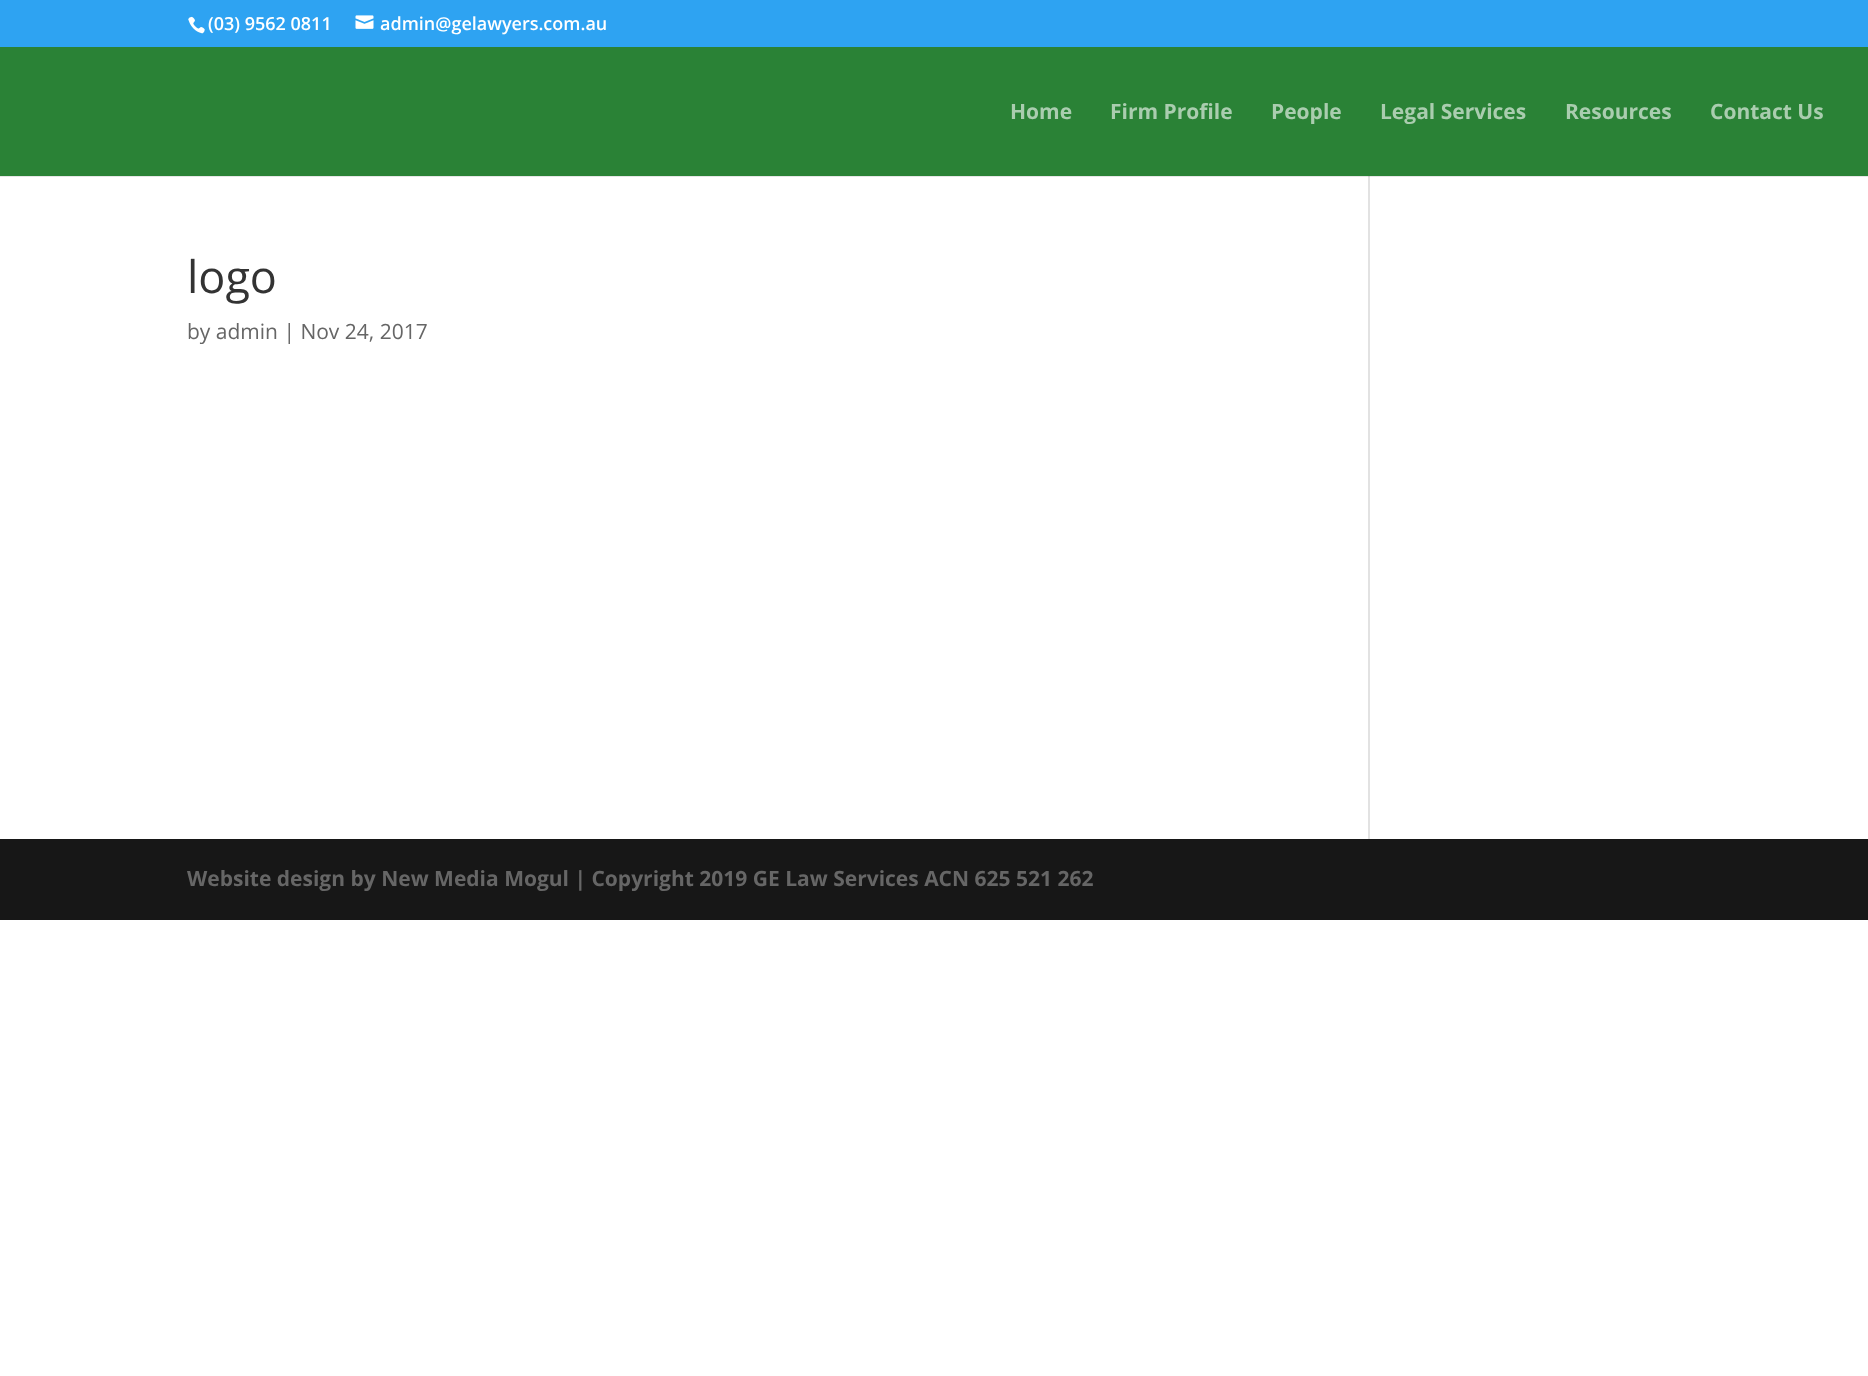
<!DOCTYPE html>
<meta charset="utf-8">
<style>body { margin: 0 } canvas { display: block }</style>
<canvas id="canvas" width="1868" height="1376"></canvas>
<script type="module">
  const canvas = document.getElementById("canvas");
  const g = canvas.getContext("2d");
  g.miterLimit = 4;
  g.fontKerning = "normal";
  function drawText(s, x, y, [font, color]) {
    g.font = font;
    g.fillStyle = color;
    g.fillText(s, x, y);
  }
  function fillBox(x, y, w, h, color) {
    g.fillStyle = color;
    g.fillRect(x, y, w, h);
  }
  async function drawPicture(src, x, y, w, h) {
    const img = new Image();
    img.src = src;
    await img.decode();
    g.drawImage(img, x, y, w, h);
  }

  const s1 = ["600 18px Open Sans", "#FFFFFF"];
  const s2 = ["bold 21px Open Sans", "#AACDAF"];
  const s3 = ["45px Open Sans", "#333333"];
  const s4 = ["21px Open Sans", "#666666"];
  const s5 = ["bold 21px Open Sans", "#666666"];

  fillBox(0, 0, 1868, 1376, "#FFFFFF");
  fillBox(0, 176, 1868, 1, "#E6E6E6");
  fillBox(0, 0, 1868, 47, "#2EA3F2");
  await drawPicture("pic1.png", 188, 16, 17, 18);
  drawText("(03) 9562 0811", 208, 30, s1);
  await drawPicture("pic2.png", 355, 15, 19, 14);
  drawText("admin@gelawyers.com.au", 380, 30, s1);
  fillBox(0, 47, 1868, 129, "#2A8236");
  drawText("Home", 1010, 119, s2);
  drawText("Firm Profile", 1110, 119, s2);
  drawText("People", 1271, 119, s2);
  drawText("Legal Services", 1380, 119, s2);
  drawText("Resources", 1565, 119, s2);
  drawText("Contact Us", 1710, 119, s2);
  drawText("logo", 187, 293, s3);
  drawText("by admin | Nov 24, 2017", 187, 339, s4);
  fillBox(1368, 177, 2, 662, "#E2E2E2");
  fillBox(1368, 176, 2, 1, "#CBCBCB");
  fillBox(0, 839, 1868, 81, "#171717");
  drawText("Website design by New Media Mogul | Copyright 2019 GE Law Services ACN 625 521 262", 187, 886, s5);
</script>
